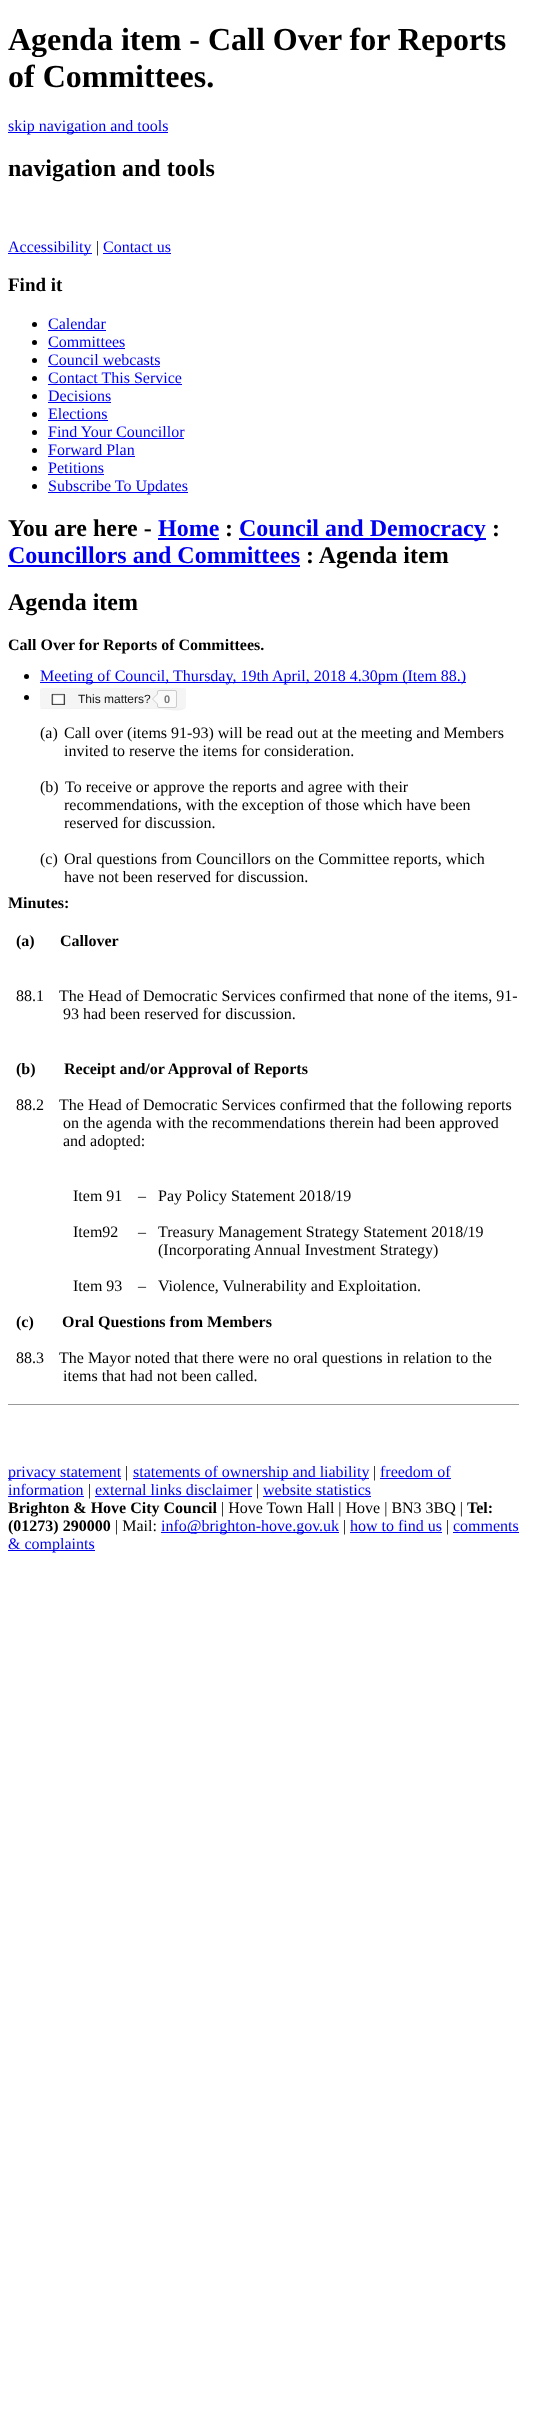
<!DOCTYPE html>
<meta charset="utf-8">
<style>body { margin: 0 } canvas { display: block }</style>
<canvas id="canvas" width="537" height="2422"></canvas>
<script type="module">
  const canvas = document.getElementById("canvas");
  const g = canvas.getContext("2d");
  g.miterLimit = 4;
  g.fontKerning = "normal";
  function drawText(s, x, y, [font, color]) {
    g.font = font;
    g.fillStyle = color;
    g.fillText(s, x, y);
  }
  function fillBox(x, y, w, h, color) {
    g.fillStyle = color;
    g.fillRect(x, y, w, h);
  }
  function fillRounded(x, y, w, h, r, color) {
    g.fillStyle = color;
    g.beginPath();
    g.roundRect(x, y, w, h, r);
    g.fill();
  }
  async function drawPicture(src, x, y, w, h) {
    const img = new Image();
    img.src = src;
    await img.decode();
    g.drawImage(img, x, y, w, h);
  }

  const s1 = ["bold 32px Liberation Serif", "#000000"];
  const s2 = ["16px Liberation Serif", "#0000EE"];
  const s3 = ["bold 24px Liberation Serif", "#000000"];
  const s4 = ["16px Liberation Serif", "#000000"];
  const s5 = ["bold 19px Liberation Serif", "#000000"];
  const s6 = ["bold 24px Liberation Serif", "#0000EE"];
  const s7 = ["bold 16px Liberation Serif", "#000000"];
  const s8 = ["12px Liberation Sans", "#141414"];
  const s9 = ["bold 11px Liberation Sans", "#777777"];

  fillBox(0, 0, 537, 2422, "#FFFFFF");
  drawText("Agenda item - Call Over for Reports", 8, 50, s1);
  drawText("of Committees.", 8, 87, s1);
  fillBox(8, 132, 160, 1, "#0000EE");
  drawText("skip navigation and tools", 8, 131, s2);
  drawText("navigation and tools", 8, 176, s3);
  fillBox(8, 253, 84, 1, "#0000EE");
  drawText("Accessibility", 8, 252, s2);
  drawText("|", 96, 252, s4);
  drawText("Contact us", 103, 252, s2);
  fillBox(103, 253, 68, 1, "#0000EE");
  drawText("Find it", 8, 291, s5);
  g.beginPath();
  g.arc(34.5, 324.5, 2.5, 0, Math.PI * 2);
  g.fill();
  drawText("Calendar", 48, 329, s2);
  fillBox(48, 330, 58, 1, "#0000EE");
  g.fillStyle = "#000000";
  g.beginPath();
  g.arc(34.5, 342.5, 2.5, 0, Math.PI * 2);
  g.fill();
  drawText("Committees", 48, 347, s2);
  fillBox(48, 348, 77, 1, "#0000EE");
  g.fillStyle = "#000000";
  g.beginPath();
  g.arc(34.5, 360.5, 2.5, 0, Math.PI * 2);
  g.fill();
  drawText("Council webcasts", 48, 365, s2);
  fillBox(48, 366, 112, 1, "#0000EE");
  g.fillStyle = "#000000";
  g.beginPath();
  g.arc(34.5, 378.5, 2.5, 0, Math.PI * 2);
  g.fill();
  drawText("Contact This Service", 48, 383, s2);
  fillBox(48, 384, 134, 1, "#0000EE");
  g.fillStyle = "#000000";
  g.beginPath();
  g.arc(34.5, 396.5, 2.5, 0, Math.PI * 2);
  g.fill();
  drawText("Decisions", 48, 401, s2);
  fillBox(48, 402, 63, 1, "#0000EE");
  g.fillStyle = "#000000";
  g.beginPath();
  g.arc(34.5, 414.5, 2.5, 0, Math.PI * 2);
  g.fill();
  drawText("Elections", 48, 419, s2);
  fillBox(48, 420, 60, 1, "#0000EE");
  g.fillStyle = "#000000";
  g.beginPath();
  g.arc(34.5, 432.5, 2.5, 0, Math.PI * 2);
  g.fill();
  drawText("Find Your Councillor", 48, 437, s2);
  fillBox(48, 438, 136, 1, "#0000EE");
  g.fillStyle = "#000000";
  g.beginPath();
  g.arc(34.5, 450.5, 2.5, 0, Math.PI * 2);
  g.fill();
  drawText("Forward Plan", 48, 455, s2);
  fillBox(48, 456, 87, 1, "#0000EE");
  g.fillStyle = "#000000";
  g.beginPath();
  g.arc(34.5, 468.5, 2.5, 0, Math.PI * 2);
  g.fill();
  drawText("Petitions", 48, 473, s2);
  fillBox(48, 474, 56, 1, "#0000EE");
  g.fillStyle = "#000000";
  g.beginPath();
  g.arc(34.5, 486.5, 2.5, 0, Math.PI * 2);
  g.fill();
  fillBox(48, 492, 140, 1, "#0000EE");
  drawText("Subscribe To Updates", 48, 491, s2);
  drawText("You are here -", 8, 536, s3);
  drawText("Home", 158, 536, s6);
  fillBox(158, 538, 61, 2, "#0000EE");
  drawText(":", 225, 536, s3);
  fillBox(239, 538, 247, 2, "#0000EE");
  drawText("Council and Democracy", 239, 536, s6);
  drawText(":", 492, 536, s3);
  drawText("Councillors and Committees", 8, 563, s6);
  fillBox(8, 565, 292, 2, "#0000EE");
  drawText(": Agenda item", 306, 563, s3);
  drawText("Agenda item", 8, 610, s3);
  drawText("Call Over for Reports of Committees.", 8, 650, s7);
  g.beginPath();
  g.arc(26.5, 676.5, 2.5, 0, Math.PI * 2);
  g.fill();
  fillBox(40, 682, 426, 1, "#0000EE");
  drawText("Meeting of Council, Thursday, 19th April, 2018 4.30pm (Item 88.)", 40, 681, s2);
  g.fillStyle = "#000000";
  g.beginPath();
  g.arc(26.5, 697.5, 2.5, 0, Math.PI * 2);
  g.fill();
  g.fillStyle = "#F2F2F2";
  g.beginPath();
  g.moveTo(40, 706);
  g.bezierCurveTo(40, 707, 40, 708, 41, 709);
  g.lineTo(160, 709);
  g.bezierCurveTo(164, 709, 186, 714, 186, 706);
  g.bezierCurveTo(186, 707, 185, 708, 184, 708);
  g.lineTo(42, 708);
  g.bezierCurveTo(41, 708, 40, 707, 40, 706);
  g.closePath();
  g.fill();
  fillRounded(40, 688, 146, 20, 2, "#F5F5F5");
  await drawPicture("pic1.png", 50, 693, 16, 12);
  drawText("This matters?", 78, 703, s8);
  g.fillStyle = "#FAFAFA";
  g.beginPath();
  g.roundRect(157.5, 690.5, 19, 17, 1.5);
  g.fill();
  g.strokeStyle = "#CCCCCC";
  g.stroke();
  g.fillStyle = "#CCCCCC";
  g.beginPath();
  g.moveTo(158, 693);
  g.lineTo(158, 705);
  g.lineTo(152, 699);
  g.closePath();
  g.fill();
  g.fillStyle = "#FAFAFA";
  g.beginPath();
  g.moveTo(158, 694);
  g.lineTo(158, 704);
  g.lineTo(153, 699);
  g.closePath();
  g.fill();
  drawText("0", 164, 703, s9);
  drawText("(a)", 40, 738, s4);
  drawText("Call over (items 91-93) will be read out at the meeting and Members", 64, 738, s4);
  drawText("invited to reserve the items for consideration.", 64, 756, s4);
  drawText("(b)", 40, 792, s4);
  drawText("To receive or approve the reports and agree with their", 65, 792, s4);
  drawText("recommendations, with the exception of those which have been", 64, 810, s4);
  drawText("reserved for discussion.", 64, 828, s4);
  drawText("(c)", 40, 864, s4);
  drawText("Oral questions from Councillors on the Committee reports, which", 64, 864, s4);
  drawText("have not been reserved for discussion.", 64, 882, s4);
  drawText("Minutes:", 8, 908, s7);
  drawText("(a)", 16, 946, s7);
  drawText("Callover", 60, 946, s7);
  drawText("88.1", 16, 1001, s4);
  drawText("The Head of Democratic Services confirmed that none of the items, 91-", 59, 1001, s4);
  drawText("93 had been reserved for discussion.", 63, 1019, s4);
  drawText("(b)", 16, 1074, s7);
  drawText("Receipt and/or Approval of Reports", 64, 1074, s7);
  drawText("88.2", 16, 1110, s4);
  drawText("The Head of Democratic Services confirmed that the following reports", 59, 1110, s4);
  drawText("on the agenda with the recommendations therein had been approved", 63, 1128, s4);
  drawText("and adopted:", 63, 1146, s4);
  drawText("Item 91", 73, 1201, s4);
  drawText("–", 138, 1201, s4);
  drawText("Pay Policy Statement 2018/19", 158, 1201, s4);
  drawText("Item92", 73, 1237, s4);
  drawText("–", 138, 1237, s4);
  drawText("Treasury Management Strategy Statement 2018/19", 158, 1237, s4);
  drawText("(Incorporating Annual Investment Strategy)", 158, 1255, s4);
  drawText("Item 93", 73, 1291, s4);
  drawText("–", 138, 1291, s4);
  drawText("Violence, Vulnerability and Exploitation.", 158, 1291, s4);
  drawText("(c)", 16, 1327, s7);
  drawText("Oral Questions from Members", 62, 1327, s7);
  drawText("88.3", 16, 1363, s4);
  drawText("The Mayor noted that there were no oral questions in relation to the", 59, 1363, s4);
  drawText("items that had not been called.", 63, 1381, s4);
  fillBox(8, 1404, 511, 1, "#999999");
  fillBox(8, 1478, 113, 1, "#0000EE");
  drawText("privacy statement", 8, 1477, s2);
  drawText("|", 125, 1477, s4);
  fillBox(133, 1478, 236, 1, "#0000EE");
  drawText("statements of ownership and liability", 133, 1477, s2);
  drawText("|", 373, 1477, s4);
  drawText("freedom of", 380, 1477, s2);
  fillBox(380, 1478, 71, 1, "#0000EE");
  drawText("information", 8, 1495, s2);
  fillBox(8, 1496, 76, 1, "#0000EE");
  drawText("|", 88, 1495, s4);
  drawText("external links disclaimer", 95, 1495, s2);
  fillBox(95, 1496, 157, 1, "#0000EE");
  drawText("|", 256, 1495, s4);
  drawText("website statistics", 263, 1495, s2);
  fillBox(263, 1496, 108, 1, "#0000EE");
  drawText("Brighton & Hove City Council", 8, 1513, s7);
  drawText("| Hove Town Hall | Hove | BN3 3BQ |", 221, 1513, s4);
  drawText("Tel:", 467, 1513, s7);
  drawText("(01273) 290000", 8, 1531, s7);
  drawText("| Mail:", 115, 1531, s4);
  fillBox(161, 1532, 178, 1, "#0000EE");
  drawText("info@brighton-hove.gov.uk", 161, 1531, s2);
  drawText("|", 343, 1531, s4);
  drawText("how to find us", 350, 1531, s2);
  fillBox(350, 1532, 92, 1, "#0000EE");
  drawText("|", 446, 1531, s4);
  drawText("comments", 453, 1531, s2);
  fillBox(453, 1532, 66, 1, "#0000EE");
  fillBox(8, 1550, 87, 1, "#0000EE");
  drawText("& complaints", 8, 1549, s2);
</script>
